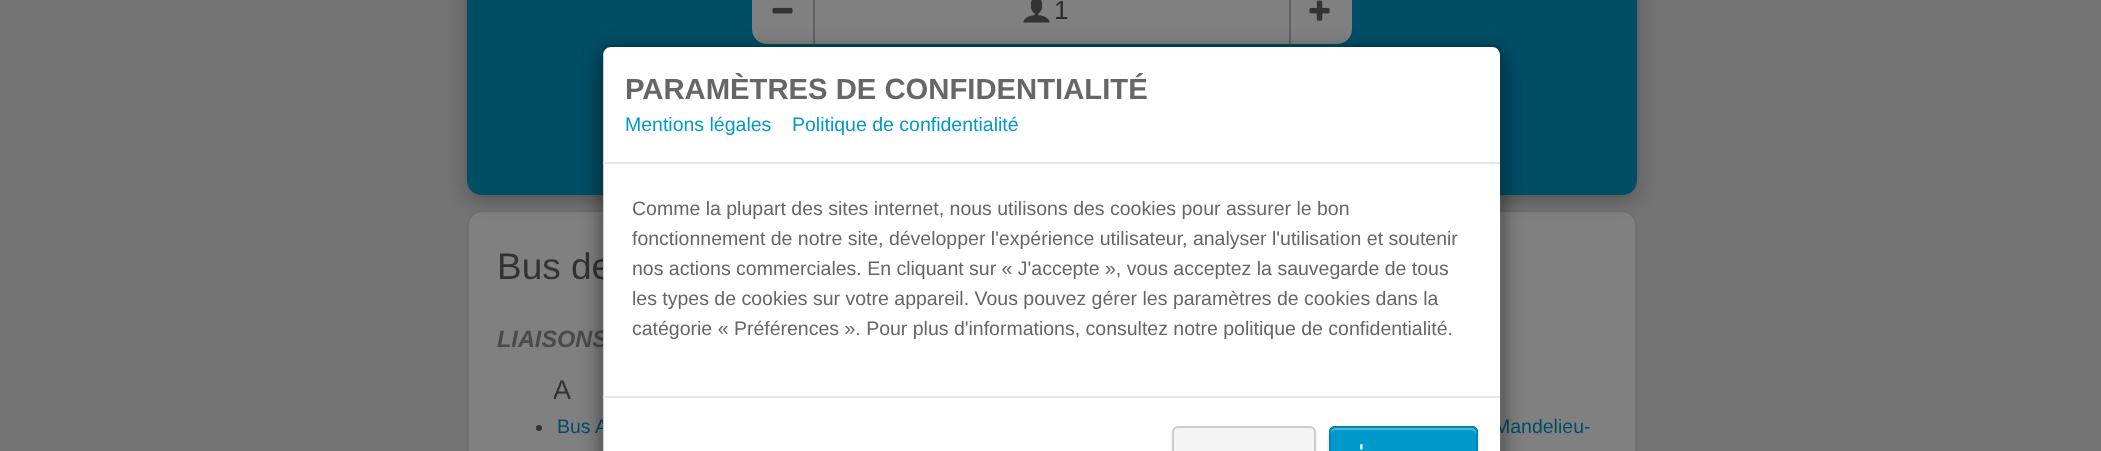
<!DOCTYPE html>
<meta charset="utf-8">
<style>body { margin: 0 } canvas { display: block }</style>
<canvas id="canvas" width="2101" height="451"></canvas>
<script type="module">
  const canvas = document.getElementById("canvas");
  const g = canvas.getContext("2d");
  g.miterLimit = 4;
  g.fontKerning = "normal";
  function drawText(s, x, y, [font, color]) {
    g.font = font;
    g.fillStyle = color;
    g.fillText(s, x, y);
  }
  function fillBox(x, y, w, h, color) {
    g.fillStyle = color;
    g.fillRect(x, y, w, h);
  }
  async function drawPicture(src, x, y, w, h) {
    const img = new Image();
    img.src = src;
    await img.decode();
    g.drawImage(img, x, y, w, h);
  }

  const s1 = ["26px Liberation Sans", "#2B2B2B"];
  const s2 = ["37px Liberation Sans", "#333333"];
  const s3 = ["italic bold 23.5px Liberation Sans", "#4A4A4A"];
  const s4 = ["27px Liberation Sans", "#333333"];
  const s5 = ["19.5px Liberation Sans", "#004D66"];
  const s6 = ["bold 29.25px Liberation Sans", "#666666"];
  const s7 = ["19.5px Liberation Sans", "#0099CC"];
  const s8 = ["19.5px Liberation Sans", "#666666"];
  const s9 = ["bold 19.5px Liberation Sans", "#FFFFFF"];

  fillBox(0, 0, 2101, 451, "#737373");
  g.fillStyle = "#808080";
  g.beginPath();
  g.roundRect(468, 211, 1168, 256, 14);
  g.fill();
  g.strokeStyle = "#6F6F6F";
  g.lineWidth = 2;
  g.stroke();
  g.fillStyle = "rgba(0, 0, 0, 0.25)";
  g.filter = "blur(9px)";
  g.beginPath();
  g.roundRect(467, -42, 1170, 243, 15);
  g.fill();
  g.filter = "none";
  g.fillStyle = "#004D66";
  g.beginPath();
  g.moveTo(467, -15);
  g.lineTo(1637, -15);
  g.lineTo(1637, 180);
  g.bezierCurveTo(1637, 188.5, 1630.5, 195, 1622, 195);
  g.lineTo(482, 195);
  g.bezierCurveTo(473.5, 195, 467, 188.5, 467, 180);
  g.closePath();
  g.fill();
  g.fillStyle = "#808080";
  g.beginPath();
  g.moveTo(767, -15);
  g.lineTo(815, -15);
  g.lineTo(815, 44);
  g.lineTo(767, 44);
  g.bezierCurveTo(758.5, 44, 752, 37.5, 752, 29);
  g.lineTo(752, 0);
  g.bezierCurveTo(752, -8.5, 758.5, -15, 767, -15);
  g.closePath();
  g.fill();
  await drawPicture("pic1.png", 772, 7, 21, 7);
  fillBox(815, 0, 474, 44, "#808080");
  await drawPicture("pic2.png", 1023, 0, 27, 23);
  g.beginPath();
  g.moveTo(1289, -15);
  g.lineTo(1337, -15);
  g.bezierCurveTo(1345.5, -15, 1352, -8.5, 1352, 0);
  g.lineTo(1352, 29);
  g.bezierCurveTo(1352, 37.5, 1345.5, 44, 1337, 44);
  g.lineTo(1289, 44);
  g.closePath();
  g.fill();
  fillBox(1289, 0, 2, 44, "#626262");
  fillBox(813, 0, 2, 44, "#626262");
  drawText("1", 1054, 19, s1);
  await drawPicture("pic3.png", 1309, 0, 21, 21);
  drawText("Bus de", 497, 279, s2);
  drawText("LIAISONS", 497, 347, s3);
  g.save();
  g.beginPath();
  g.rect(554, 371, 486, 42);
  g.clip();
  drawText("A", 553, 399, s4);
  g.restore();
  g.fillStyle = "#333333";
  g.beginPath();
  g.arc(539, 428, 3, 0, Math.PI * 2);
  g.fill();
  drawText("Bus A", 557, 433, s5);
  drawText("Mandelieu-", 1494, 433, s5);
  g.save();
  g.beginPath();
  g.moveTo(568, 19);
  g.lineTo(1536, 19);
  g.lineTo(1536, 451);
  g.lineTo(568, 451);
  g.closePath();
  g.moveTo(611, 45);
  g.lineTo(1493, 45);
  g.bezierCurveTo(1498, 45, 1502, 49, 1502, 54);
  g.lineTo(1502, 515);
  g.bezierCurveTo(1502, 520, 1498, 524, 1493, 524);
  g.lineTo(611, 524);
  g.bezierCurveTo(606, 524, 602, 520, 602, 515);
  g.lineTo(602, 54);
  g.bezierCurveTo(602, 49, 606, 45, 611, 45);
  g.closePath();
  g.clip("evenodd");
  g.fillStyle = "rgba(0, 0, 0, 0.5)";
  g.filter = "blur(11px)";
  g.beginPath();
  g.roundRect(602, 53, 900, 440, 9);
  g.fill();
  g.filter = "none";
  g.restore();
  g.fillStyle = "#FFFFFF";
  g.beginPath();
  g.moveTo(611, 47);
  g.lineTo(1492, 47);
  g.bezierCurveTo(1496.5, 47, 1500, 50.5, 1500, 55);
  g.lineTo(1500, 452);
  g.lineTo(603, 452);
  g.lineTo(603, 55);
  g.bezierCurveTo(603, 50.5, 606.5, 47, 611, 47);
  g.closePath();
  g.fill();
  g.beginPath();
  g.roundRect(603, 46, 898, 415, 8);
  g.strokeStyle = "rgba(0, 0, 0, 0.2)";
  g.stroke();
  fillBox(603, 162, 897, 2, "#E5E5E5");
  drawText("PARAMÈTRES DE CONFIDENTIALITÉ", 625, 99, s6);
  drawText("Mentions légales", 625, 131, s7);
  drawText("Politique de confidentialité", 792, 131, s7);
  drawText("Comme la plupart des sites internet, nous utilisons des cookies pour assurer le bon", 632, 215, s8);
  drawText("fonctionnement de notre site, développer l'expérience utilisateur, analyser l'utilisation et soutenir", 632, 245, s8);
  drawText("nos actions commerciales. En cliquant sur « J'accepte », vous acceptez la sauvegarde de tous", 632, 275, s8);
  drawText("les types de cookies sur votre appareil. Vous pouvez gérer les paramètres de cookies dans la", 632, 305, s8);
  drawText("catégorie « Préférences ». Pour plus d'informations, consultez notre politique de confidentialité.", 632, 335, s8);
  fillBox(603, 396, 897, 2, "#E5E5E5");
  g.fillStyle = "rgba(0, 0, 0, 0.1)";
  g.filter = "blur(1.5px)";
  g.beginPath();
  g.roundRect(1172, 429, 144, 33, 6);
  g.fill();
  g.filter = "none";
  g.fillStyle = "#F4F4F4";
  g.beginPath();
  g.moveTo(1178, 426);
  g.lineTo(1310, 426);
  g.bezierCurveTo(1313.5, 426, 1316, 428.5, 1316, 432);
  g.lineTo(1316, 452);
  g.lineTo(1172, 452);
  g.lineTo(1172, 432);
  g.bezierCurveTo(1172, 428.5, 1174.5, 426, 1178, 426);
  g.closePath();
  g.fill();
  g.beginPath();
  g.roundRect(1173, 427, 142, 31, 5);
  g.strokeStyle = "#CCCCCC";
  g.stroke();
  g.fillStyle = "rgba(0, 0, 0, 0.2)";
  g.filter = "blur(1.5px)";
  g.beginPath();
  g.roundRect(1329, 429, 149, 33, 6);
  g.fill();
  g.filter = "none";
  g.fillStyle = "#0099CB";
  g.beginPath();
  g.moveTo(1335, 426);
  g.lineTo(1472, 426);
  g.bezierCurveTo(1475.5, 426, 1478, 428.5, 1478, 432);
  g.lineTo(1478, 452);
  g.lineTo(1329, 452);
  g.lineTo(1329, 432);
  g.bezierCurveTo(1329, 428.5, 1331.5, 426, 1335, 426);
  g.closePath();
  g.fill();
  g.fillStyle = "#4DB8DA";
  g.beginPath();
  g.moveTo(1335, 430);
  g.lineTo(1472, 430);
  g.bezierCurveTo(1474, 430, 1476, 433, 1476, 435);
  g.lineTo(1476, 433);
  g.bezierCurveTo(1476, 430, 1474, 428, 1471, 428);
  g.lineTo(1336, 428);
  g.bezierCurveTo(1333, 428, 1331, 430, 1331, 433);
  g.bezierCurveTo(1332, 431, 1334, 430, 1335, 430);
  g.closePath();
  g.fill();
  g.beginPath();
  g.roundRect(1330, 427, 147, 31, 5);
  g.strokeStyle = "#0086B3";
  g.stroke();
  drawText("'", 1359, 458, s9);
</script>
